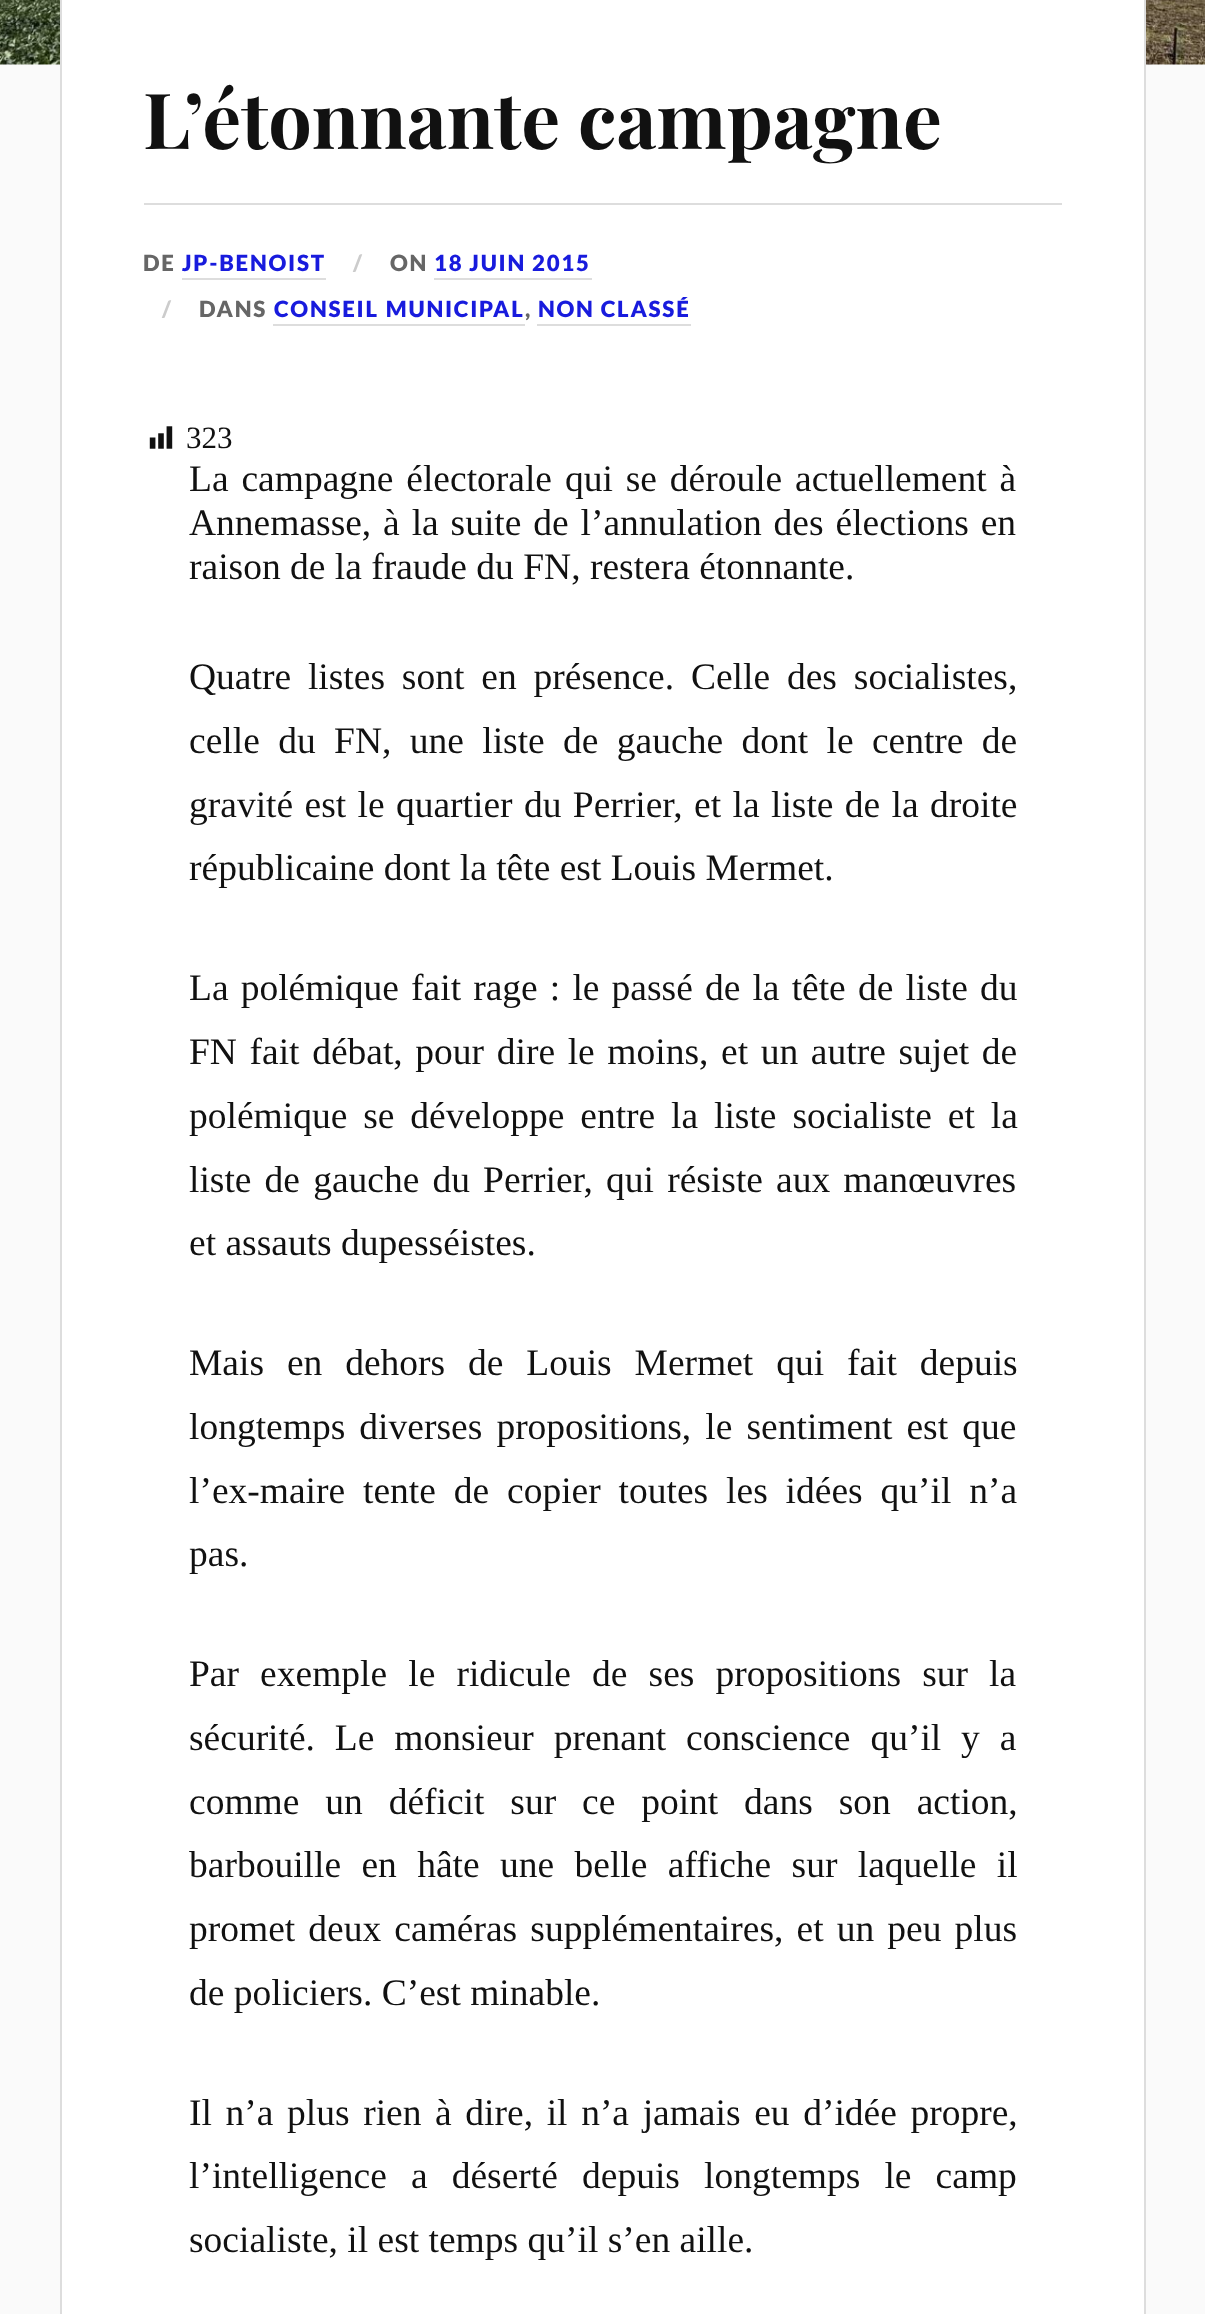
<!DOCTYPE html>
<meta charset="utf-8">
<style>body { margin: 0 } canvas { display: block }</style>
<canvas id="canvas" width="1205" height="2314"></canvas>
<script type="module">
  const canvas = document.getElementById("canvas");
  const g = canvas.getContext("2d");
  g.miterLimit = 4;
  g.fontKerning = "normal";
  function drawText(s, x, y, [font, color]) {
    g.font = font;
    g.fillStyle = color;
    g.fillText(s, x, y);
  }
  function fillBox(x, y, w, h, color) {
    g.fillStyle = color;
    g.fillRect(x, y, w, h);
  }
  async function drawPicture(src, x, y, w, h) {
    const img = new Image();
    img.src = src;
    await img.decode();
    g.drawImage(img, x, y, w, h);
  }

  const s1 = ["bold 77.3px Playfair Display", "#111111"];
  const s2 = ["900 22.25px Lato", "#666666"];
  const s3 = ["900 22.25px Lato", "#181BDD"];
  const s4 = ["900 22.25px Lato", "#CCCCCC"];
  const s5 = ["31px Liberation Serif", "#111111"];
  const s6 = ["37.5px Liberation Serif", "#111111"];

  fillBox(0, 0, 1205, 2314, "#FAFAFA");
  await drawPicture("pic1.png", 0, 0, 1205, 65);
  g.fillStyle = "#FFFFFF";
  g.beginPath();
  g.rect(61, -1, 1084, 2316);
  g.fill();
  g.strokeStyle = "#DDDDDD";
  g.lineWidth = 2;
  g.stroke();
  drawText("L’étonnante campagne", 143, 149, s1);
  fillBox(144, 203, 918, 2, "#DDDDDD");
  g.letterSpacing = "1.75px";
  drawText("DE", 143, 271, s2);
  drawText("JP-BENOIST", 182, 271, s3);
  fillBox(182, 278, 144, 2, "#DDDDDD");
  drawText("/", 353, 271, s4);
  drawText("ON", 390, 271, s2);
  drawText("18 JUIN 2015", 434, 271, s3);
  fillBox(434, 278, 158, 2, "#DDDDDD");
  drawText("/", 162, 317, s4);
  drawText("DANS", 199, 317, s2);
  g.wordSpacing = "1px";
  drawText("CONSEIL MUNICIPAL", 274, 317, s3);
  fillBox(273, 324, 252, 2, "#DDDDDD");
  g.wordSpacing = "0px";
  drawText(",", 525, 317, s2);
  drawText("NON CLASSÉ", 538, 317, s3);
  fillBox(537, 324, 154, 2, "#DDDDDD");
  await drawPicture("pic2.png", 149, 426, 24, 23);
  g.letterSpacing = "0px";
  drawText("323", 186, 448, s5);
  g.wordSpacing = "3.5px";
  drawText("La campagne électorale qui se déroule actuellement à", 189, 491, s6);
  g.wordSpacing = "2.5px";
  drawText("Annemasse, à la suite de l’annulation des élections en", 189, 535, s6);
  g.wordSpacing = "0px";
  drawText("raison de la fraude du FN, restera étonnante.", 189, 579, s6);
  g.wordSpacing = "7.5px";
  drawText("Quatre listes sont en présence. Celle des socialistes,", 189, 689, s6);
  g.wordSpacing = "9px";
  drawText("celle du FN, une liste de gauche dont le centre de", 189, 753, s6);
  g.wordSpacing = "2px";
  drawText("gravité est le quartier du Perrier, et la liste de la droite", 189, 817, s6);
  g.wordSpacing = "0px";
  drawText("républicaine dont la tête est Louis Mermet.", 189, 880, s6);
  g.wordSpacing = "2.75px";
  drawText("La polémique fait rage : le passé de la tête de liste du", 189, 1000, s6);
  g.wordSpacing = "3.25px";
  drawText("FN fait débat, pour dire le moins, et un autre sujet de", 189, 1064, s6);
  g.wordSpacing = "6.5px";
  drawText("polémique se développe entre la liste socialiste et la", 189, 1128, s6);
  g.wordSpacing = "3.75px";
  drawText("liste de gauche du Perrier, qui résiste aux manœuvres", 189, 1192, s6);
  g.wordSpacing = "0px";
  drawText("et assauts dupesséistes.", 189, 1255, s6);
  g.wordSpacing = "13.5px";
  drawText("Mais en dehors de Louis Mermet qui fait depuis", 189, 1375, s6);
  g.wordSpacing = "4.75px";
  drawText("longtemps diverses propositions, le sentiment est que", 189, 1439, s6);
  g.wordSpacing = "8.5px";
  drawText("l’ex-maire tente de copier toutes les idées qu’il n’a", 189, 1503, s6);
  g.wordSpacing = "0px";
  drawText("pas.", 189, 1566, s6);
  g.wordSpacing = "11.75px";
  drawText("Par exemple le ridicule de ses propositions sur la", 189, 1686, s6);
  g.wordSpacing = "10.5px";
  drawText("sécurité. Le monsieur prenant conscience qu’il y a", 189, 1750, s6);
  g.wordSpacing = "16.5px";
  drawText("comme un déficit sur ce point dans son action,", 189, 1814, s6);
  g.wordSpacing = "11px";
  drawText("barbouille en hâte une belle affiche sur laquelle il", 189, 1877, s6);
  g.wordSpacing = "3.75px";
  drawText("promet deux caméras supplémentaires, et un peu plus", 189, 1941, s6);
  g.wordSpacing = "0px";
  drawText("de policiers. C’est minable.", 189, 2005, s6);
  g.wordSpacing = "4.25px";
  drawText("Il n’a plus rien à dire, il n’a jamais eu d’idée propre,", 189, 2125, s6);
  g.wordSpacing = "14.75px";
  drawText("l’intelligence a déserté depuis longtemps le camp", 189, 2188, s6);
  g.wordSpacing = "0px";
  drawText("socialiste, il est temps qu’il s’en aille.", 189, 2252, s6);
</script>
